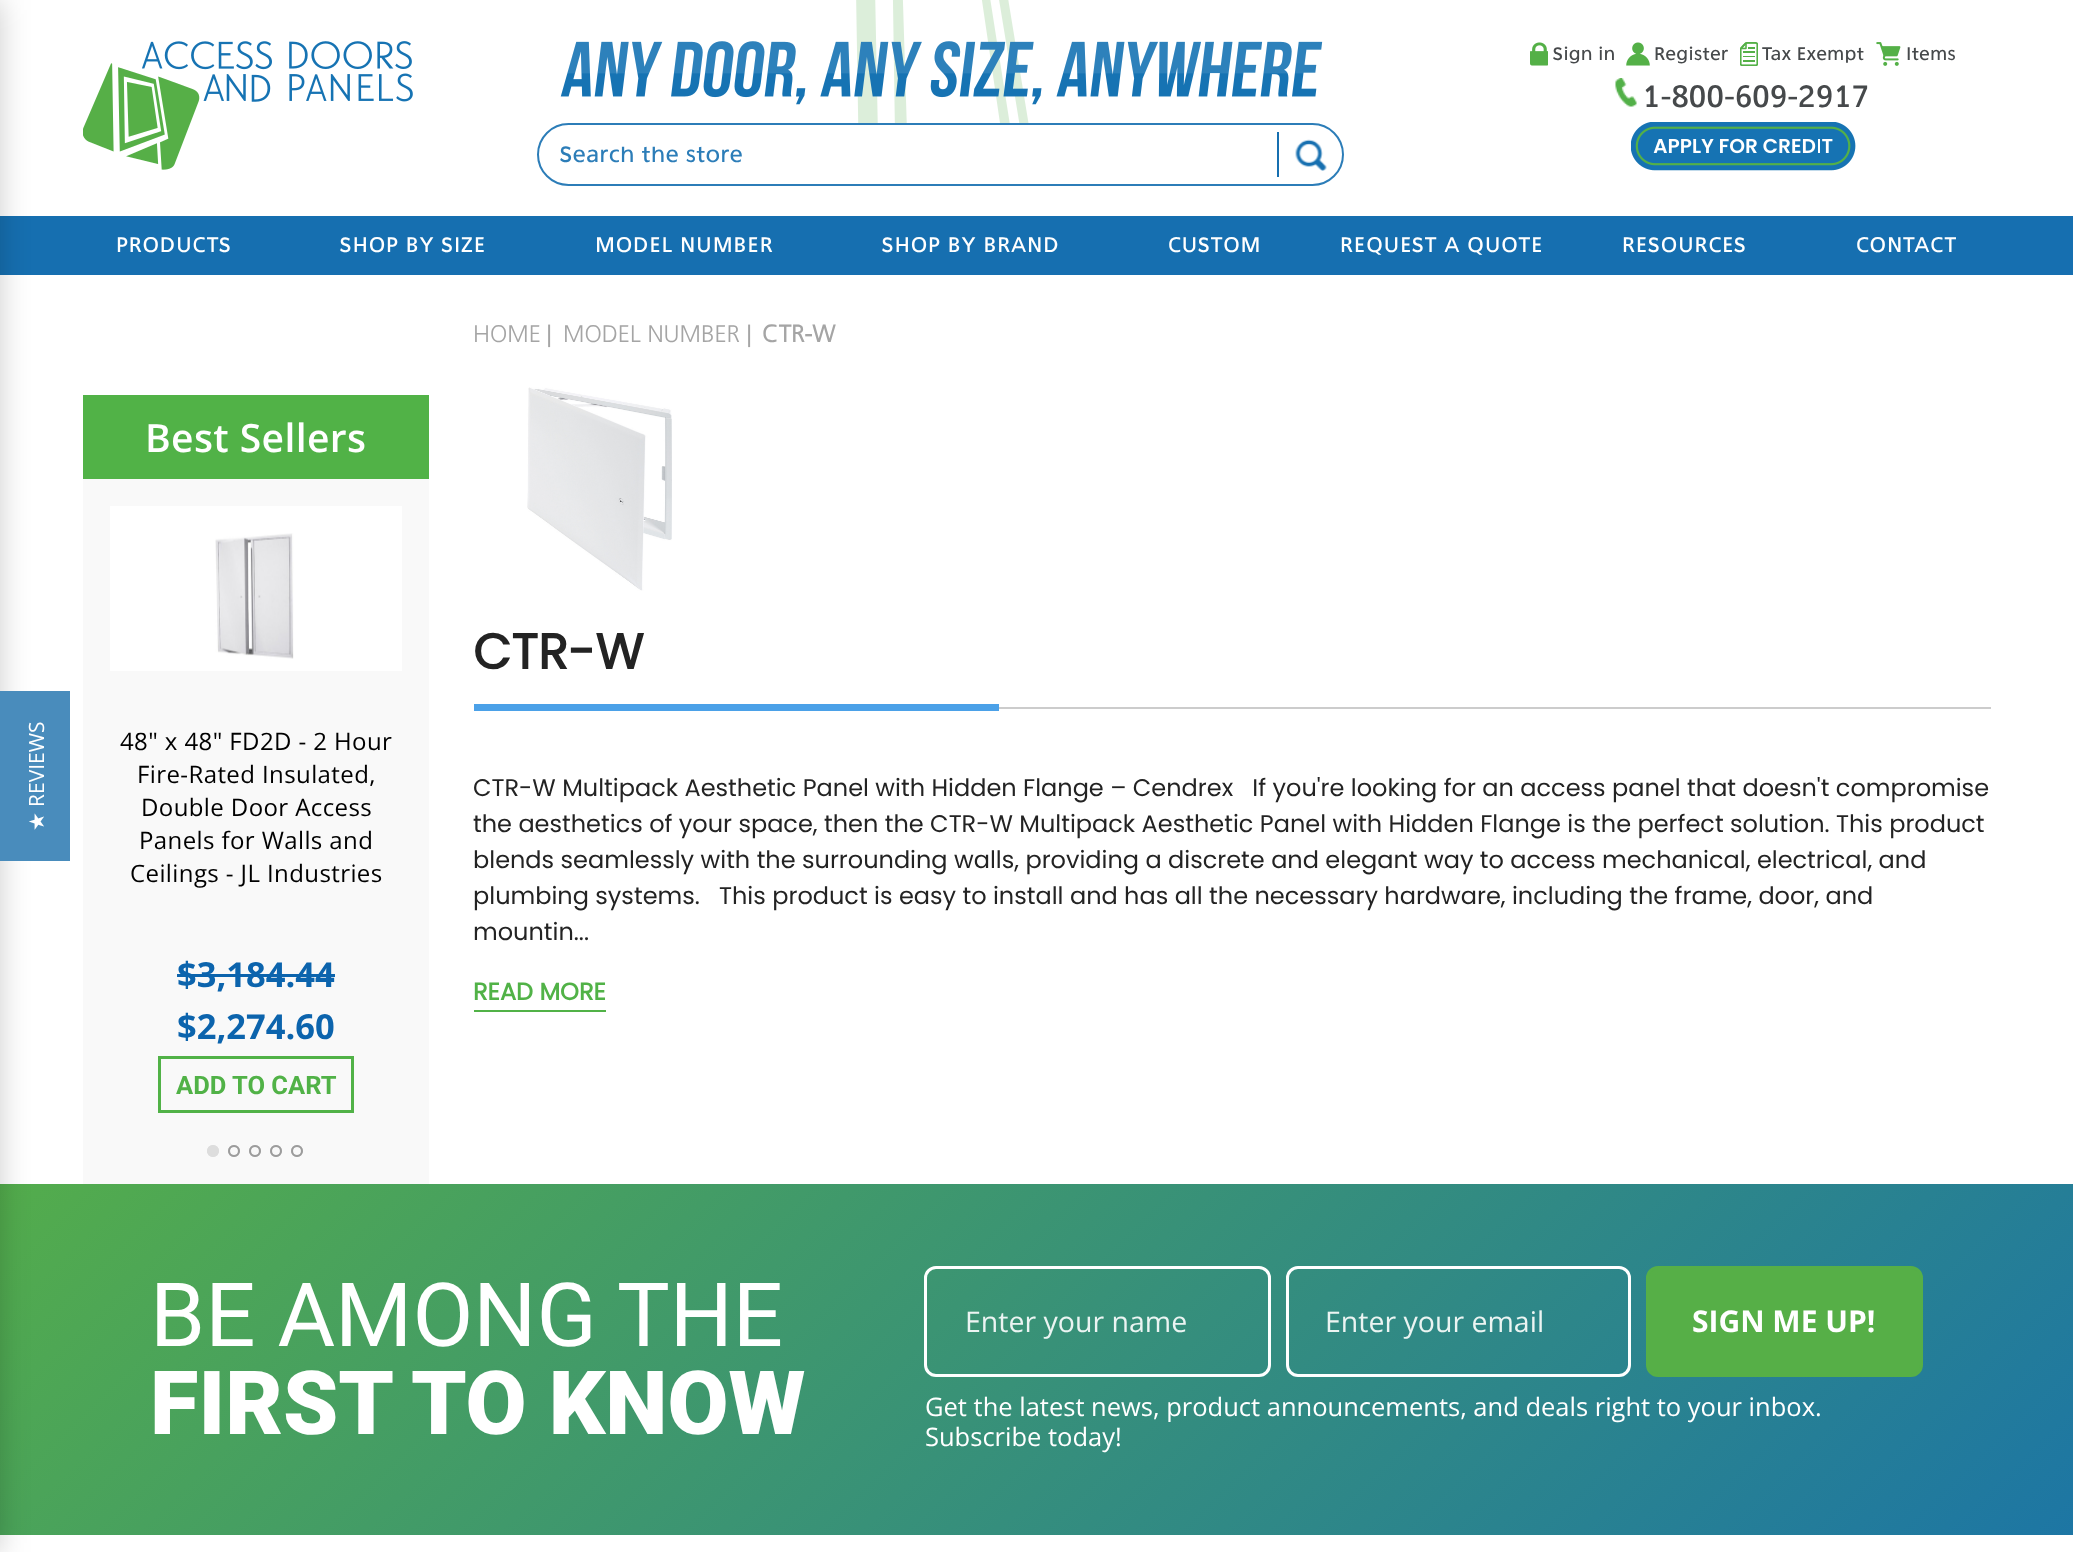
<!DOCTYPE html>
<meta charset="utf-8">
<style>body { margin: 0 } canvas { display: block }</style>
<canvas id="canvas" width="2073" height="1552"></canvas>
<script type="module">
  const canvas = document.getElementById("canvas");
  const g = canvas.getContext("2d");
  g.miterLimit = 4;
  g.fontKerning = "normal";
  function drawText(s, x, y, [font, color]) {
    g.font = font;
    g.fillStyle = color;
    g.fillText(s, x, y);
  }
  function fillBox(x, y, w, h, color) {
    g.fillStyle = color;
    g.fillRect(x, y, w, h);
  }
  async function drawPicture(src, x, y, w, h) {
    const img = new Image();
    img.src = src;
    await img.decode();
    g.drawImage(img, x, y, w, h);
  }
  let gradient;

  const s1 = ["19.5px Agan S", "#46494B"];
  const s2 = ["33px Agan S", "#46494B"];
  const s3 = ["24px Agan S", "#2C7DB8"];
  const s4 = ["22.5px Agan S", "#FFFFFF"];
  const s5 = ["600 39px Open Sans", "#FFFFFF"];
  const s6 = ["24px Open Sans", "#000000"];
  const s7 = ["bold 34.5px Open Sans", "#0C64AD"];
  const s8 = ["bold 25.5px Roboto", "#51B247"];
  const s9 = ["300 24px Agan", "#A5A5A5"];
  const s10 = ["24px Liberation Sans", "#A5A5A5"];
  const s11 = ["bold 24px Agan", "#A5A5A5"];
  const s12 = ["bold 49.5px Poppins", "#232323"];
  const s13 = ["24px Poppins", "#232323"];
  const s14 = ["bold 24px Poppins", "#51B247"];
  const s15 = ["88.5px Roboto", "#FFFFFF"];
  const s16 = ["900 88.5px Roboto", "#FFFFFF"];
  const s17 = ["28.5px Open Sans", "#EBF4F2"];
  const s18 = ["bold 30px Open Sans", "#FFFFFF"];
  const s19 = ["25.5px Open Sans", "#FFFFFF"];

  fillBox(0, 0, 2073, 1552, "#FFFFFF");
  fillBox(0, 216, 2073, 59, "#166FB0");
  gradient = g.createLinearGradient(449, 750, 1624, 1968);
  gradient.addColorStop(0, "#53AC4C");
  gradient.addColorStop(1, "#1D76A4");
  g.fillStyle = gradient;
  g.fillRect(0, 1184, 2073, 351);
  g.fillStyle = "rgba(0, 0, 0, 0.2)";
  g.filter = "blur(15px)";
  g.beginPath();
  g.rect(-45, 0, 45, 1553);
  g.fill();
  g.filter = "none";
  await drawPicture("pic1.png", 83, 41, 330, 129);
  await drawPicture("pic2.png", 1530, 42, 18, 24);
  drawText("Sign in", 1553, 60, s1);
  await drawPicture("pic3.png", 1626, 42, 24, 24);
  drawText("Register", 1654, 60, s1);
  await drawPicture("pic4.png", 1740, 42, 18, 24);
  drawText("Tax Exempt", 1762, 60, s1);
  await drawPicture("pic5.png", 1876, 42, 25, 24);
  drawText("Items", 1906, 60, s1);
  await drawPicture("pic6.png", 1615, 78, 22, 29);
  drawText("1-800-609-2917", 1642, 107, s2);
  await drawPicture("pic7.png", 1631, 122, 225, 49);
  await drawPicture("pic8.png", 560, 0, 763, 123);
  g.beginPath();
  g.roundRect(538, 124, 805, 61, 30.5);
  g.strokeStyle = "#2C7DB8";
  g.lineWidth = 2;
  g.stroke();
  drawText("Search the store", 560, 162, s3);
  await drawPicture("pic9.png", 1295, 139, 32, 32);
  fillBox(1277, 132, 2, 45, "#166FB0");
  g.letterSpacing = "0.75px";
  drawText("PRODUCTS", 116, 252, s4);
  drawText("SHOP BY SIZE", 340, 252, s4);
  drawText("MODEL NUMBER", 595, 252, s4);
  drawText("SHOP BY BRAND", 882, 252, s4);
  drawText("CUSTOM", 1168, 252, s4);
  drawText("REQUEST A QUOTE", 1340, 252, s4);
  drawText("RESOURCES", 1622, 252, s4);
  drawText("CONTACT", 1856, 252, s4);
  fillBox(0, 691, 70, 170, "#498CBC");
  g.letterSpacing = "0px";
  g.font = "21px Open Sans";
  g.fillStyle = "#FFFFFF";
  g.save();
  g.translate(44, 807);
  g.rotate(-90 * Math.PI / 180);
  g.fillText("REVIEWS", 0, 0);
  g.restore();
  g.font = "21px DejaVu Sans";
  g.save();
  g.translate(44, 831);
  g.rotate(-90 * Math.PI / 180);
  g.fillText("★", 0, 0);
  g.restore();
  fillBox(83, 395, 346, 84, "#51B247");
  g.letterSpacing = "0.4px";
  drawText("Best Sellers", 145, 452, s5);
  fillBox(83, 479, 346, 705, "#F9F9F9");
  fillBox(110, 506, 292, 165, "#FFFFFF");
  await drawPicture("pic10.png", 215, 533, 79, 126);
  drawText("48\" x 48\" FD2D - 2 Hour", 120, 750, s6);
  drawText("Fire-Rated Insulated,", 137, 783, s6);
  drawText("Double Door Access", 141, 816, s6);
  drawText("Panels for Walls and", 139, 849, s6);
  drawText("Ceilings - JL Industries", 130, 882, s6);
  g.letterSpacing = "0px";
  drawText("$3,184.44", 177, 987, s7);
  fillBox(177, 974, 158, 3, "#0C64AD");
  drawText("$2,274.60", 177, 1039, s7);
  g.strokeStyle = "#51B247";
  g.lineWidth = 3;
  g.strokeRect(159.5, 1057.5, 193, 54);
  drawText("ADD TO CART", 176, 1094, s8);
  g.beginPath();
  g.arc(213, 1151, 5, 0, Math.PI * 2);
  g.strokeStyle = "#DDDDDD";
  g.lineWidth = 2;
  g.stroke();
  g.fillStyle = "#DDDDDD";
  g.beginPath();
  g.arc(213, 1151, 5, 0, Math.PI * 2);
  g.fill();
  g.stroke();
  g.beginPath();
  g.arc(234, 1151, 5, 0, Math.PI * 2);
  g.strokeStyle = "#9C9C9C";
  g.stroke();
  g.beginPath();
  g.arc(234, 1151, 5, 0, Math.PI * 2);
  g.strokeStyle = "rgba(156, 156, 156, 0.6)";
  g.stroke();
  g.beginPath();
  g.arc(255, 1151, 5, 0, Math.PI * 2);
  g.strokeStyle = "#9C9C9C";
  g.stroke();
  g.beginPath();
  g.arc(255, 1151, 5, 0, Math.PI * 2);
  g.strokeStyle = "rgba(156, 156, 156, 0.6)";
  g.stroke();
  g.beginPath();
  g.arc(276, 1151, 5, 0, Math.PI * 2);
  g.strokeStyle = "#9C9C9C";
  g.stroke();
  g.beginPath();
  g.arc(276, 1151, 5, 0, Math.PI * 2);
  g.strokeStyle = "rgba(156, 156, 156, 0.6)";
  g.stroke();
  g.beginPath();
  g.arc(297, 1151, 5, 0, Math.PI * 2);
  g.strokeStyle = "#9C9C9C";
  g.stroke();
  g.beginPath();
  g.arc(297, 1151, 5, 0, Math.PI * 2);
  g.strokeStyle = "rgba(156, 156, 156, 0.6)";
  g.stroke();
  drawText("HOME", 473, 342, s9);
  drawText("|", 546, 342, s10);
  drawText("MODEL NUMBER", 563, 342, s9);
  drawText("|", 746, 342, s10);
  drawText("CTR-W", 762, 342, s11);
  await drawPicture("pic11.png", 527, 387, 145, 204);
  fillBox(999, 707, 992, 2, "#CCCCCC");
  drawText("CTR-W", 473, 669, s12);
  fillBox(474, 704, 525, 7, "#4BA1E8");
  drawText("CTR-W Multipack Aesthetic Panel with Hidden Flange – Cendrex   If you're looking for an access panel that doesn't compromise", 473, 796, s13);
  drawText("the aesthetics of your space, then the CTR-W Multipack Aesthetic Panel with Hidden Flange is the perfect solution. This product", 473, 832, s13);
  drawText("blends seamlessly with the surrounding walls, providing a discrete and elegant way to access mechanical, electrical, and", 473, 868, s13);
  drawText("plumbing systems.   This product is easy to install and has all the necessary hardware, including the frame, door, and", 473, 904, s13);
  drawText("mountin...", 473, 940, s13);
  drawText("READ MORE", 473, 1000, s14);
  fillBox(474, 1010, 132, 2, "#51B247");
  drawText("BE AMONG THE", 150, 1346, s15);
  drawText("FIRST TO KNOW", 150, 1434, s16);
  g.beginPath();
  g.roundRect(925.5, 1267.5, 344, 108, 10.5);
  g.strokeStyle = "#FFFFFF";
  g.lineWidth = 3;
  g.stroke();
  drawText("Enter your name", 965, 1332, s17);
  g.beginPath();
  g.roundRect(1287.5, 1267.5, 342, 108, 10.5);
  g.stroke();
  drawText("Enter your email", 1325, 1332, s17);
  g.fillStyle = "#56AF47";
  g.beginPath();
  g.roundRect(1647.5, 1267.5, 274, 108, 10.5);
  g.fill();
  g.strokeStyle = "#56AF47";
  g.stroke();
  drawText("SIGN ME UP!", 1692, 1332, s18);
  drawText("Get the latest news, product announcements, and deals right to your inbox.", 925, 1416, s19);
  drawText("Subscribe today!", 925, 1446, s19);
</script>
